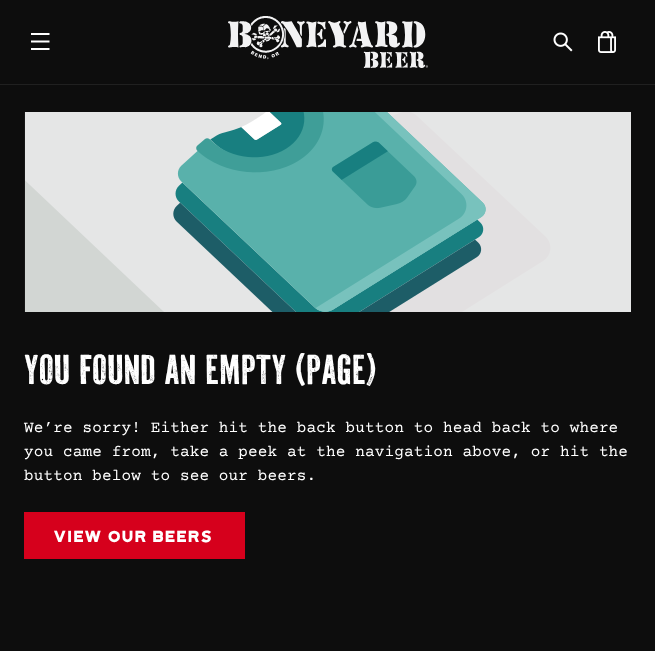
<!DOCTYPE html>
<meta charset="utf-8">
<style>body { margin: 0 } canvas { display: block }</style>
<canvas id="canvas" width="655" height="651"></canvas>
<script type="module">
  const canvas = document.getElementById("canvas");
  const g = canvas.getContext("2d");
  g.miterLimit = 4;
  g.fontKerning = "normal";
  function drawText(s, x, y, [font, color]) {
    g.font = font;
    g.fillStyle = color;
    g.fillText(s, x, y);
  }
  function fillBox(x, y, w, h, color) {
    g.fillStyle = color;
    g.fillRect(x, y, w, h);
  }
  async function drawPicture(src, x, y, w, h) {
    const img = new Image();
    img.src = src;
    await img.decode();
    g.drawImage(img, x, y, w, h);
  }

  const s1 = ["40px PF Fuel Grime", "#FFFFFF"];
  const s2 = ["16px Courier Prime", "#FFFFFF"];
  const s3 = ["16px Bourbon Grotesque", "#FFFFFF"];

  fillBox(0, 0, 655, 651, "#0D0D0D");
  fillBox(0, 84, 655, 1, "#202020");
  await drawPicture("pic1.png", 31, 33, 19, 17);
  await drawPicture("pic2.png", 228, 16, 200, 52);
  await drawPicture("pic3.png", 553, 32, 20, 20);
  await drawPicture("pic4.png", 598, 31, 18, 22);
  fillBox(24, 112, 1, 200, "#171717");
  await drawPicture("pic5.png", 25, 112, 606, 200);
  drawText("You Found An Empty (Page)", 24, 384, s1);
  g.letterSpacing = "0.15px";
  drawText("We’re sorry! Either hit the back button to head back to where", 24, 432, s2);
  drawText("you came from, take a peek at the navigation above, or hit the", 24, 456, s2);
  drawText("button below to see our beers.", 24, 480, s2);
  fillBox(24, 512, 221, 47, "#D6001C");
  g.letterSpacing = "0.25px";
  drawText("View Our Beers", 54, 542, s3);
</script>
